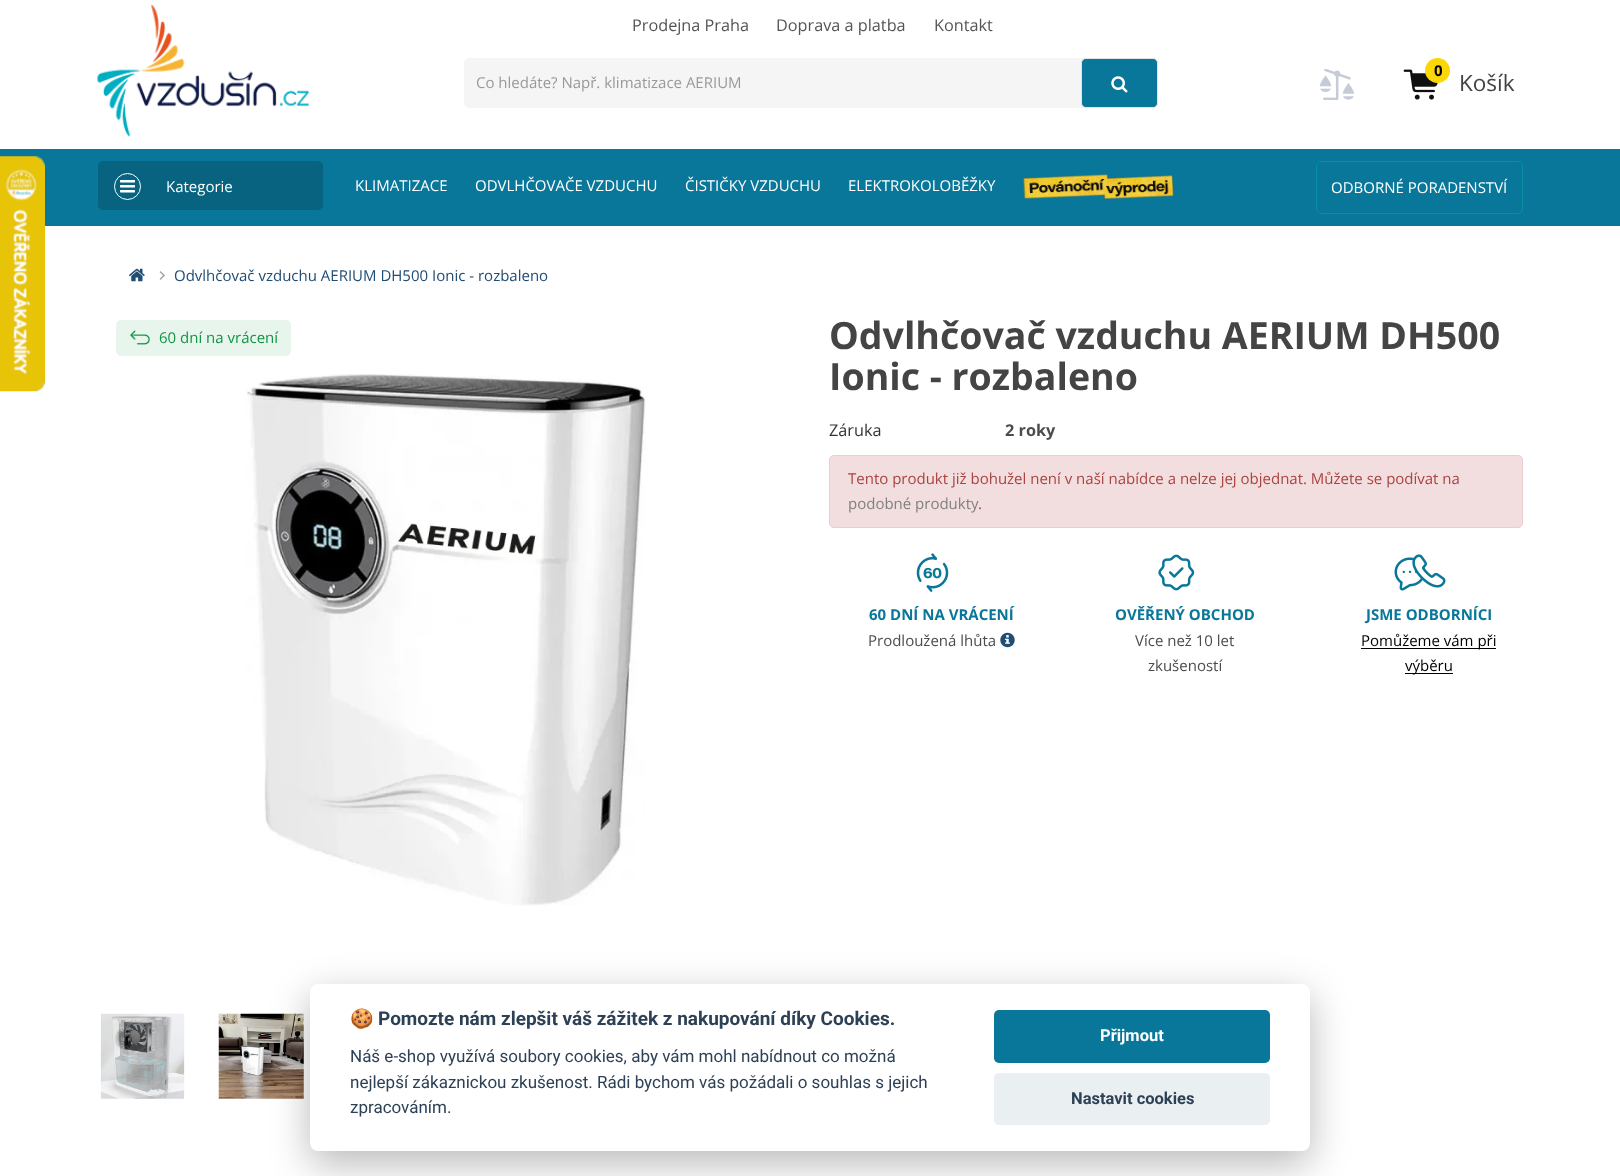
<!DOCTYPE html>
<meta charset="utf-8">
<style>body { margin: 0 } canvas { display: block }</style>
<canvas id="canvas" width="1620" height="1176"></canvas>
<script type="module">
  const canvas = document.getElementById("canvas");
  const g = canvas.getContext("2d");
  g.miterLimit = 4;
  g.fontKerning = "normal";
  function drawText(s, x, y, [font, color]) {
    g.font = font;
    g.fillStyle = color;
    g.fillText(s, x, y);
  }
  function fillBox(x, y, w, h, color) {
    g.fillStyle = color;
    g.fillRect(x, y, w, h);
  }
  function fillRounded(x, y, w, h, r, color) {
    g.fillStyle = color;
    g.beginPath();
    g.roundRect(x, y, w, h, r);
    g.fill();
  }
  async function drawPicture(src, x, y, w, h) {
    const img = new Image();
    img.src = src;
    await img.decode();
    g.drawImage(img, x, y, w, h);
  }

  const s1 = ["16.25px Open Sans", "#545454"];
  const s2 = ["15px Open Sans", "#999999"];
  const s3 = ["bold 15px Open Sans", "#000000"];
  const s4 = ["22.5px Open Sans", "#444444"];
  const s5 = ["15px Open Sans", "#FFFFFF"];
  const s6 = ["15px Open Sans", "#204D74"];
  const s7 = ["15px Open Sans", "#109544"];
  const s8 = ["bold 37.5px Open Sans", "#444444"];
  const s9 = ["16.25px Open Sans", "#333333"];
  const s10 = ["bold 16.25px Open Sans", "#4C4C4C"];
  const s11 = ["15px Open Sans", "#A94442"];
  const s12 = ["15px Open Sans", "#808080"];
  const s13 = ["bold 15px Open Sans", "#097799"];
  const s14 = ["15px Open Sans", "#4C4C4C"];
  const s15 = ["15px Open Sans", "#000000"];
  const s16 = ["bold 19px Noto Color Emoji", "#2D4156"];
  const s17 = ["bold 19px Roboto", "#2D4156"];
  const s18 = ["17px Roboto", "#2D4156"];
  const s19 = ["bold 16.5px Roboto", "#FFFFFF"];
  const s20 = ["bold 16.5px Roboto", "#2D4156"];

  fillBox(0, 0, 1620, 1176, "#FFFFFF");
  drawText("Prodejna Praha", 632, 31, s1);
  drawText("Doprava a platba", 776, 31, s1);
  drawText("Kontakt", 934, 31, s1);
  await drawPicture("pic1.png", 97, 5, 212, 132);
  g.fillStyle = "#F5F5F5";
  g.beginPath();
  g.roundRect(464, 58, 619, 50, [5, 0, 0, 5]);
  g.fill();
  drawText("Co hledáte? Např. klimatizace AERIUM", 476, 88, s2);
  g.fillStyle = "#097799";
  g.beginPath();
  g.roundRect(1081.5, 58.5, 76, 49, 4.5);
  g.fill();
  g.strokeStyle = "#E3E4E4";
  g.stroke();
  await drawPicture("pic2.png", 1111, 76, 17, 17);
  await drawPicture("pic3.png", 1320, 69, 35, 31);
  await drawPicture("pic4.png", 1403, 69, 35, 31);
  g.fillStyle = "#FBD707";
  g.beginPath();
  g.arc(1437.5, 70.5, 12.5, 0, Math.PI * 2);
  g.fill();
  drawText("0", 1434, 76, s3);
  drawText("Košík", 1459, 91, s4);
  fillBox(0, 149, 1620, 77, "#097799");
  await drawPicture("pic5.png", 0, 156, 45, 236);
  g.fillStyle = "#07637F";
  g.beginPath();
  g.roundRect(98.5, 161.5, 224, 48, 4.5);
  g.fill();
  g.strokeStyle = "#07637F";
  g.stroke();
  g.beginPath();
  g.arc(127.5, 186.5, 13, 0, Math.PI * 2);
  g.strokeStyle = "#FFFFFF";
  g.stroke();
  await drawPicture("pic6.png", 120, 180, 15, 13);
  drawText("Kategorie", 166, 192, s5);
  drawText("KLIMATIZACE", 355, 191, s5);
  drawText("ODVLHČOVAČE VZDUCHU", 475, 191, s5);
  drawText("ČISTIČKY VZDUCHU", 685, 191, s5);
  drawText("ELEKTROKOLOBĚŽKY", 848, 191, s5);
  await drawPicture("pic7.png", 1023, 174, 151, 26);
  g.beginPath();
  g.roundRect(1316.5, 161.5, 206, 52, 4.5);
  g.strokeStyle = "#078EA0";
  g.stroke();
  drawText("ODBORNÉ PORADENSTVÍ", 1331, 193, s5);
  await drawPicture("pic8.png", 129, 268, 16, 14);
  g.fillStyle = "#A3A3A3";
  g.beginPath();
  g.moveTo(159.5, 272);
  g.lineTo(160.5, 271);
  g.lineTo(165, 275.5);
  g.lineTo(164, 276.5);
  g.closePath();
  g.fill();
  g.beginPath();
  g.moveTo(159.5, 279);
  g.lineTo(164, 274.5);
  g.lineTo(165, 275.5);
  g.lineTo(160.5, 280);
  g.closePath();
  g.fill();
  drawText("Odvlhčovač vzduchu AERIUM DH500 Ionic - rozbaleno", 174, 281, s6);
  g.fillStyle = "#E8F5ED";
  g.beginPath();
  g.roundRect(116.5, 320.5, 174, 35, 4.5);
  g.fill();
  g.strokeStyle = "#E8F5ED";
  g.stroke();
  await drawPicture("pic9.png", 130, 330, 20, 15);
  drawText("60 dní na vrácení", 159, 343, s7);
  await drawPicture("pic10.png", 246, 374, 400, 532);
  await drawPicture("pic11.png", 100, 1013, 85, 86);
  await drawPicture("pic12.png", 218, 1013, 86, 86);
  drawText("Odvlhčovač vzduchu AERIUM DH500", 829, 349, s8);
  drawText("Ionic - rozbaleno", 829, 390, s8);
  drawText("Záruka", 829, 436, s9);
  drawText("2 roky", 1005, 436, s10);
  g.fillStyle = "#F2DEDE";
  g.beginPath();
  g.roundRect(829.5, 455.5, 693, 72, 4.5);
  g.fill();
  g.strokeStyle = "#EBCCD1";
  g.stroke();
  drawText("Tento produkt již bohužel není v naší nabídce a nelze jej objednat. Můžete se podívat na", 848, 484, s11);
  drawText("podobné produkty", 848, 509, s12);
  drawText(".", 978, 509, s11);
  await drawPicture("pic13.png", 916, 553, 33, 39);
  drawText("60 DNÍ NA VRÁCENÍ", 869, 620, s13);
  drawText("Prodloužená lhůta", 868, 646, s14);
  await drawPicture("pic14.png", 1000, 632, 15, 16);
  await drawPicture("pic15.png", 1158, 554, 37, 37);
  drawText("OVĚŘENÝ OBCHOD", 1115, 620, s13);
  drawText("Více než 10 let", 1135, 646, s14);
  drawText("zkušeností", 1148, 671, s14);
  await drawPicture("pic16.png", 1394, 554, 52, 37);
  drawText("JSME ODBORNÍCI", 1366, 620, s13);
  fillBox(1361, 648, 135, 1, "#000000");
  drawText("Pomůžeme vám při", 1361, 646, s15);
  fillBox(1405, 673, 48, 1, "#000000");
  drawText("výběru", 1405, 671, s15);
  g.fillStyle = "rgba(2, 2, 3, 0.28)";
  g.filter = "blur(19px)";
  g.beginPath();
  g.roundRect(310, 996, 1000, 168, 8);
  g.fill();
  g.filter = "none";
  fillRounded(310, 984, 1000, 167, 8, "#FFFFFF");
  drawText("🍪", 350, 1025, s16);
  drawText("Pomozte nám zlepšit váš zážitek z nakupování díky Cookies.", 378, 1025, s17);
  drawText("Náš e-shop využívá soubory cookies, aby vám mohl nabídnout co možná", 350, 1062, s18);
  drawText("nejlepší zákaznickou zkušenost. Rádi bychom vás požádali o souhlas s jejich", 350, 1088, s18);
  drawText("zpracováním.", 350, 1113, s18);
  fillRounded(994, 1010, 276, 53, 5, "#097799");
  drawText("Přijmout", 1100, 1041, s19);
  fillRounded(994, 1073, 276, 52, 5, "#EAEFF2");
  drawText("Nastavit cookies", 1071, 1104, s20);
</script>
